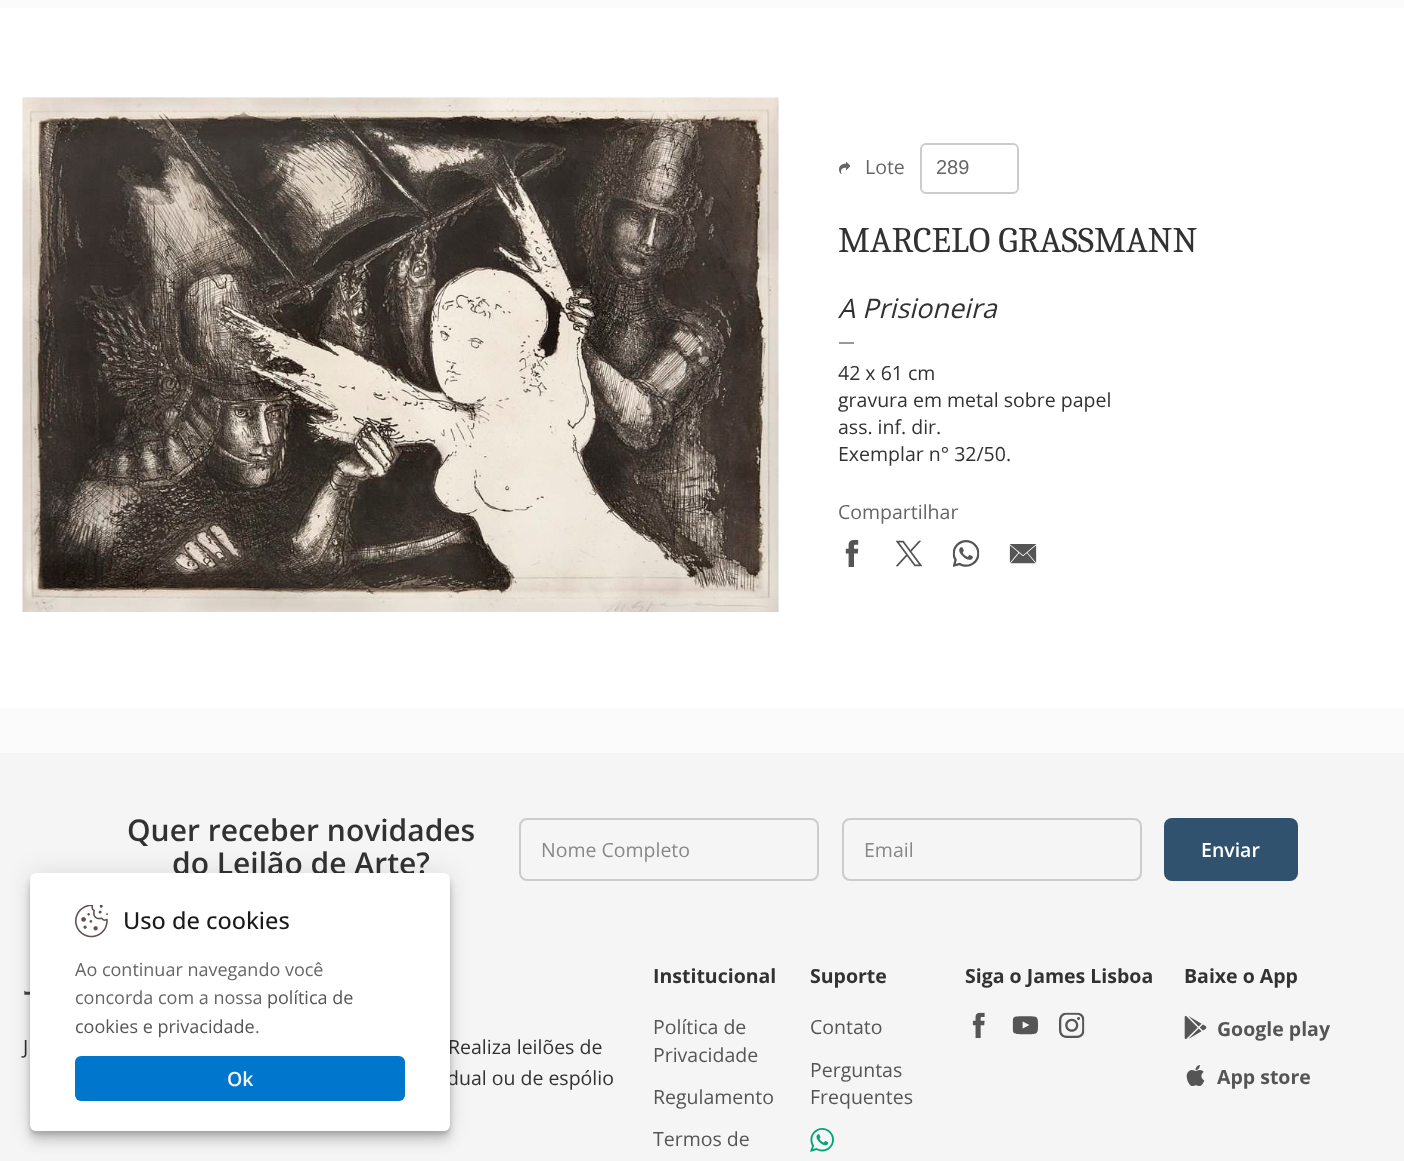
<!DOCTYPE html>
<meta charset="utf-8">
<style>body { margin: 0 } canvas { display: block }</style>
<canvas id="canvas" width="1404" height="1161"></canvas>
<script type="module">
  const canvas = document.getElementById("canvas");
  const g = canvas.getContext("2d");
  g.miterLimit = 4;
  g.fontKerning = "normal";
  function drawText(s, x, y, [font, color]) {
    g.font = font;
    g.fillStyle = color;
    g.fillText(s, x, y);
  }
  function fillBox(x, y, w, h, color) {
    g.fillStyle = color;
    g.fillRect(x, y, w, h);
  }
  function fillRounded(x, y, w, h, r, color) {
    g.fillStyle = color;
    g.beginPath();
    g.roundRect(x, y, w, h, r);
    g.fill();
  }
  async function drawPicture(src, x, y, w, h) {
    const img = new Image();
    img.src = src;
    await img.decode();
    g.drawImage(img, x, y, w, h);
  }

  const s1 = ["19.5px Open Sans", "#666666"];
  const s2 = ["20px Liberation Sans", "#666666"];
  const s3 = ["36px Caladea", "#323232"];
  const s4 = ["italic 27px Open Sans", "#323232"];
  const s5 = ["19.5px Open Sans", "#323232"];
  const s6 = ["600 30px Open Sans", "#323232"];
  const s7 = ["19.5px Open Sans", "#888888"];
  const s8 = ["600 19.5px Open Sans", "#FFFFFF"];
  const s9 = ["bold 19.5px Open Sans", "#323232"];
  const s10 = ["19.5px Open Sans", "#555555"];
  const s11 = ["bold 19.5px Open Sans", "#555555"];
  const s12 = ["500 23.5px Open Sans", "#1A1A1A"];
  const s13 = ["18px Open Sans", "#666666"];
  const s14 = ["18px Open Sans", "#555555"];
  const s15 = ["600 19.5px Open Sans", "#F1F1F1"];

  fillBox(0, 0, 1404, 1161, "#FBFBFB");
  fillBox(0, 8, 1404, 700, "#FFFFFF");
  await drawPicture("pic1.png", 22, 97, 757, 515);
  await drawPicture("pic2.png", 839, 161, 12, 13);
  drawText("Lote", 865, 174, s1);
  g.beginPath();
  g.roundRect(921, 144, 97, 49, 5);
  g.strokeStyle = "#CCCCCC";
  g.lineWidth = 2;
  g.stroke();
  drawText("289", 936, 174, s2);
  drawText("MARCELO GRASSMANN", 838, 252, s3);
  drawText("A Prisioneira", 838, 318, s4);
  fillBox(839, 342, 15, 2, "#999999");
  drawText("42 x 61 cm", 838, 380, s5);
  drawText("gravura em metal sobre papel", 838, 407, s5);
  drawText("ass. inf. dir.", 838, 434, s5);
  drawText("Exemplar n° 32/50.", 838, 461, s5);
  drawText("Compartilhar", 838, 519, s1);
  await drawPicture("pic3.png", 845, 540, 14, 27);
  await drawPicture("pic4.png", 896, 540, 26, 27);
  await drawPicture("pic5.png", 952, 540, 28, 27);
  await drawPicture("pic6.png", 1009, 544, 28, 20);
  fillBox(0, 753, 1404, 408, "#F5F5F5");
  drawText("Quer receber novidades", 127, 841, s6);
  drawText("do Leilão de Arte?", 172, 874, s6);
  g.beginPath();
  g.roundRect(520, 819, 298, 61, 7);
  g.stroke();
  drawText("Nome Completo", 541, 857, s7);
  g.beginPath();
  g.roundRect(843, 819, 298, 61, 7);
  g.stroke();
  drawText("Email", 864, 857, s7);
  fillRounded(1164, 818, 134, 63, 8, "#31526F");
  drawText("Enviar", 1201, 857, s8);
  await drawPicture("pic7.png", 24, 990, 6, 5);
  drawText("J", 23, 1054, s5);
  drawText("Realiza leilões de", 448, 1054, s5);
  drawText("dual ou de espólio", 447, 1085, s5);
  drawText("Institucional", 653, 983, s9);
  drawText("Política de", 653, 1034, s10);
  drawText("Privacidade", 653, 1062, s10);
  drawText("Regulamento", 653, 1104, s10);
  drawText("Termos de", 653, 1146, s10);
  drawText("Suporte", 810, 983, s9);
  drawText("Contato", 810, 1034, s10);
  drawText("Perguntas", 810, 1077, s10);
  drawText("Frequentes", 810, 1104, s10);
  await drawPicture("pic8.png", 810, 1128, 24, 24);
  drawText("Siga o James Lisboa", 965, 983, s9);
  await drawPicture("pic9.png", 972, 1012, 13, 26);
  await drawPicture("pic10.png", 1012, 1016, 26, 19);
  await drawPicture("pic11.png", 1059, 1012, 26, 26);
  drawText("Baixe o App", 1184, 983, s9);
  await drawPicture("pic12.png", 1184, 1015, 23, 25);
  drawText("Google play", 1217, 1036, s11);
  await drawPicture("pic13.png", 1186, 1065, 19, 21);
  drawText("App store", 1217, 1084, s11);
  g.fillStyle = "rgba(0, 0, 0, 0.1)";
  g.filter = "blur(12px)";
  g.beginPath();
  g.roundRect(30, 873, 420, 258, 6);
  g.fill();
  g.filter = "none";
  g.filter = "blur(6px)";
  g.beginPath();
  g.roundRect(30, 885, 420, 258, 6);
  g.fill();
  g.filter = "none";
  g.filter = "blur(3px)";
  g.beginPath();
  g.roundRect(30, 879, 420, 258, 6);
  g.fill();
  g.filter = "none";
  g.filter = "blur(1.5px)";
  g.beginPath();
  g.roundRect(30, 876, 420, 258, 6);
  g.fill();
  g.filter = "none";
  fillRounded(30, 873, 420, 258, 6, "#FFFFFF");
  await drawPicture("pic14.png", 75, 905, 33, 33);
  drawText("Uso de cookies", 123, 929, s12);
  drawText("Ao continuar navegando você", 75, 976, s13);
  drawText("concorda com a nossa", 75, 1004, s13);
  drawText("política de", 267, 1004, s14);
  drawText("cookies e privacidade", 75, 1033, s14);
  drawText(".", 255, 1033, s13);
  fillRounded(75, 1056, 330, 45, 6, "#0077CC");
  drawText("Ok", 227, 1086, s15);
</script>
